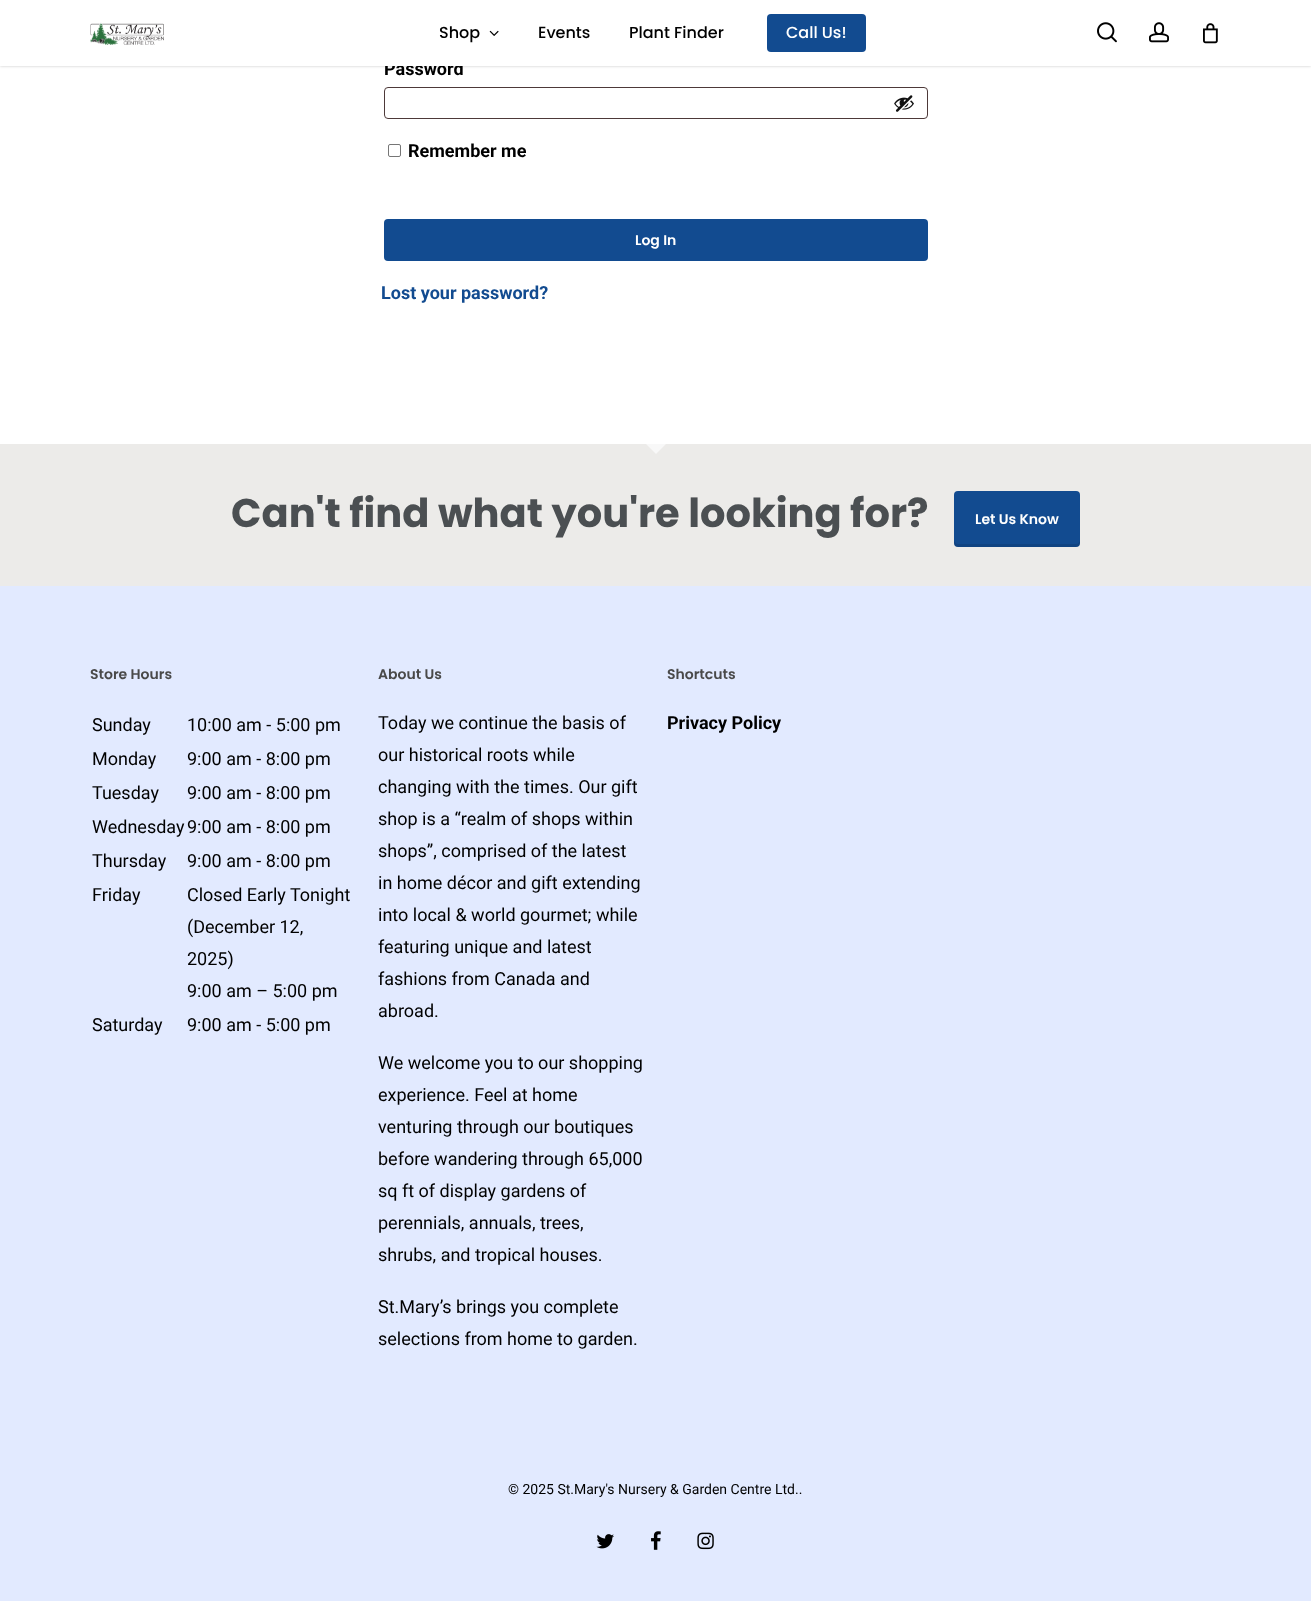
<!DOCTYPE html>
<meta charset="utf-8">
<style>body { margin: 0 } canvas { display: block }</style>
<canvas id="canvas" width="1311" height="1601"></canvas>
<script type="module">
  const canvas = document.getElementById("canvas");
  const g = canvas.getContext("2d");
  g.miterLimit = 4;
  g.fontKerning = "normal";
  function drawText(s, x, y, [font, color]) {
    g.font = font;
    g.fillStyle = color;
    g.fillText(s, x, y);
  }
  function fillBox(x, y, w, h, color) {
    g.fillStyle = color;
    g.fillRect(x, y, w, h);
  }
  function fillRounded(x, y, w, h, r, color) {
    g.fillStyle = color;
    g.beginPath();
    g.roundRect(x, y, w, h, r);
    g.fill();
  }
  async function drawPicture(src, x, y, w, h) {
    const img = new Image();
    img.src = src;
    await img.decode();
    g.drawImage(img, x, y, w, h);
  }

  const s1 = ["bold 18px Roboto", "#000000"];
  const s2 = ["500 16px Poppins", "#000000"];
  const s3 = ["500 16px Poppins", "#FFFFFF"];
  const s4 = ["600 14px Poppins", "#FFFFFF"];
  const s5 = ["bold 18px Roboto", "#124B90"];
  const s6 = ["bold 40px Poppins", "#4B4F52"];
  const s7 = ["600 14px Poppins", "#494949"];
  const s8 = ["18px Roboto", "#000000"];
  const s9 = ["14px Roboto", "#000000"];

  fillBox(0, 0, 1311, 1601, "#FFFFFF");
  g.fillStyle = "rgba(0, 0, 0, 0.22)";
  g.filter = "blur(1.5px)";
  g.beginPath();
  g.rect(0, -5, 1311, 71);
  g.fill();
  g.filter = "none";
  drawText("Password", 384, 75, s1);
  fillBox(0, 0, 1311, 66, "#FFFFFF");
  await drawPicture("pic1.png", 90, 22, 74, 23);
  drawText("Shop", 439, 38, s2);
  await drawPicture("pic2.png", 489, 30, 10, 6);
  drawText("Events", 538, 38, s2);
  drawText("Plant Finder", 629, 38, s2);
  fillRounded(767, 14, 99, 38, 4, "#124B90");
  drawText("Call Us!", 786, 38, s3);
  await drawPicture("pic3.png", 1097, 22, 20, 21);
  await drawPicture("pic4.png", 1149, 22, 20, 21);
  await drawPicture("pic5.png", 1203, 23, 15, 21);
  g.beginPath();
  g.roundRect(384.5, 87.5, 543, 31, 3.5);
  g.strokeStyle = "#4D3939";
  g.stroke();
  await drawPicture("pic6.png", 894, 95, 20, 17);
  g.beginPath();
  g.roundRect(388.5, 144.5, 12, 12, 1.5);
  g.strokeStyle = "#767676";
  g.stroke();
  drawText("Remember me", 408, 157, s1);
  fillRounded(384, 219, 544, 42, 4, "#124B90");
  drawText("Log In", 635, 245, s4);
  drawText("Lost your password?", 381, 299, s5);
  fillBox(0, 586, 1311, 1015, "#E2EAFF");
  fillBox(0, 444, 1311, 142, "#ECEBE9");
  g.fillStyle = "#F8F8F8";
  g.beginPath();
  g.moveTo(646, 444);
  g.lineTo(666, 444);
  g.lineTo(656, 454);
  g.closePath();
  g.fill();
  drawText("Can't find what you're looking for?", 231, 527, s6);
  fillRounded(954, 491, 126, 56, 4, "#124B90");
  g.fillStyle = "rgba(0, 0, 0, 0.1)";
  g.beginPath();
  g.moveTo(954, 540);
  g.lineTo(954, 543);
  g.bezierCurveTo(954, 545, 956, 547, 958, 547);
  g.lineTo(1076, 547);
  g.bezierCurveTo(1078, 547, 1080, 545, 1080, 543);
  g.lineTo(1080, 540);
  g.bezierCurveTo(1080, 542, 1078, 544, 1076, 544);
  g.lineTo(958, 544);
  g.bezierCurveTo(956, 544, 954, 542, 954, 540);
  g.closePath();
  g.fill();
  drawText("Let Us Know", 975, 524, s4);
  drawText("Store Hours", 90, 679, s7);
  drawText("Sunday", 92, 731, s8);
  drawText("10:00 am - 5:00 pm", 187, 731, s8);
  drawText("Monday", 92, 765, s8);
  drawText("9:00 am - 8:00 pm", 187, 765, s8);
  drawText("Tuesday", 92, 799, s8);
  drawText("9:00 am - 8:00 pm", 187, 799, s8);
  drawText("Wednesday", 92, 833, s8);
  drawText("9:00 am - 8:00 pm", 187, 833, s8);
  drawText("Thursday", 92, 867, s8);
  drawText("9:00 am - 8:00 pm", 187, 867, s8);
  drawText("Friday", 92, 901, s8);
  drawText("Closed Early Tonight", 187, 901, s8);
  drawText("(December 12,", 187, 933, s8);
  drawText("2025)", 187, 965, s8);
  drawText("9:00 am – 5:00 pm", 187, 997, s8);
  drawText("Saturday", 92, 1031, s8);
  drawText("9:00 am - 5:00 pm", 187, 1031, s8);
  drawText("About Us", 378, 679, s7);
  drawText("Today we continue the basis of", 378, 729, s8);
  drawText("our historical roots while", 378, 761, s8);
  drawText("changing with the times. Our gift", 378, 793, s8);
  drawText("shop is a “realm of shops within", 378, 825, s8);
  drawText("shops”, comprised of the latest", 378, 857, s8);
  drawText("in home décor and gift extending", 378, 889, s8);
  drawText("into local & world gourmet; while", 378, 921, s8);
  drawText("featuring unique and latest", 378, 953, s8);
  drawText("fashions from Canada and", 378, 985, s8);
  drawText("abroad.", 378, 1017, s8);
  drawText("We welcome you to our shopping", 378, 1069, s8);
  drawText("experience. Feel at home", 378, 1101, s8);
  drawText("venturing through our boutiques", 378, 1133, s8);
  drawText("before wandering through 65,000", 378, 1165, s8);
  drawText("sq ft of display gardens of", 378, 1197, s8);
  drawText("perennials, annuals, trees,", 378, 1229, s8);
  drawText("shrubs, and tropical houses.", 378, 1261, s8);
  drawText("St.Mary’s brings you complete", 378, 1313, s8);
  drawText("selections from home to garden.", 378, 1345, s8);
  drawText("Shortcuts", 667, 679, s7);
  drawText("Privacy Policy", 667, 729, s1);
  drawText("© 2025 St.Mary's Nursery & Garden Centre Ltd..", 508, 1494, s9);
  await drawPicture("pic7.png", 596, 1534, 18, 15);
  await drawPicture("pic8.png", 651, 1531, 10, 19);
  await drawPicture("pic9.png", 697, 1532, 17, 18);
</script>
